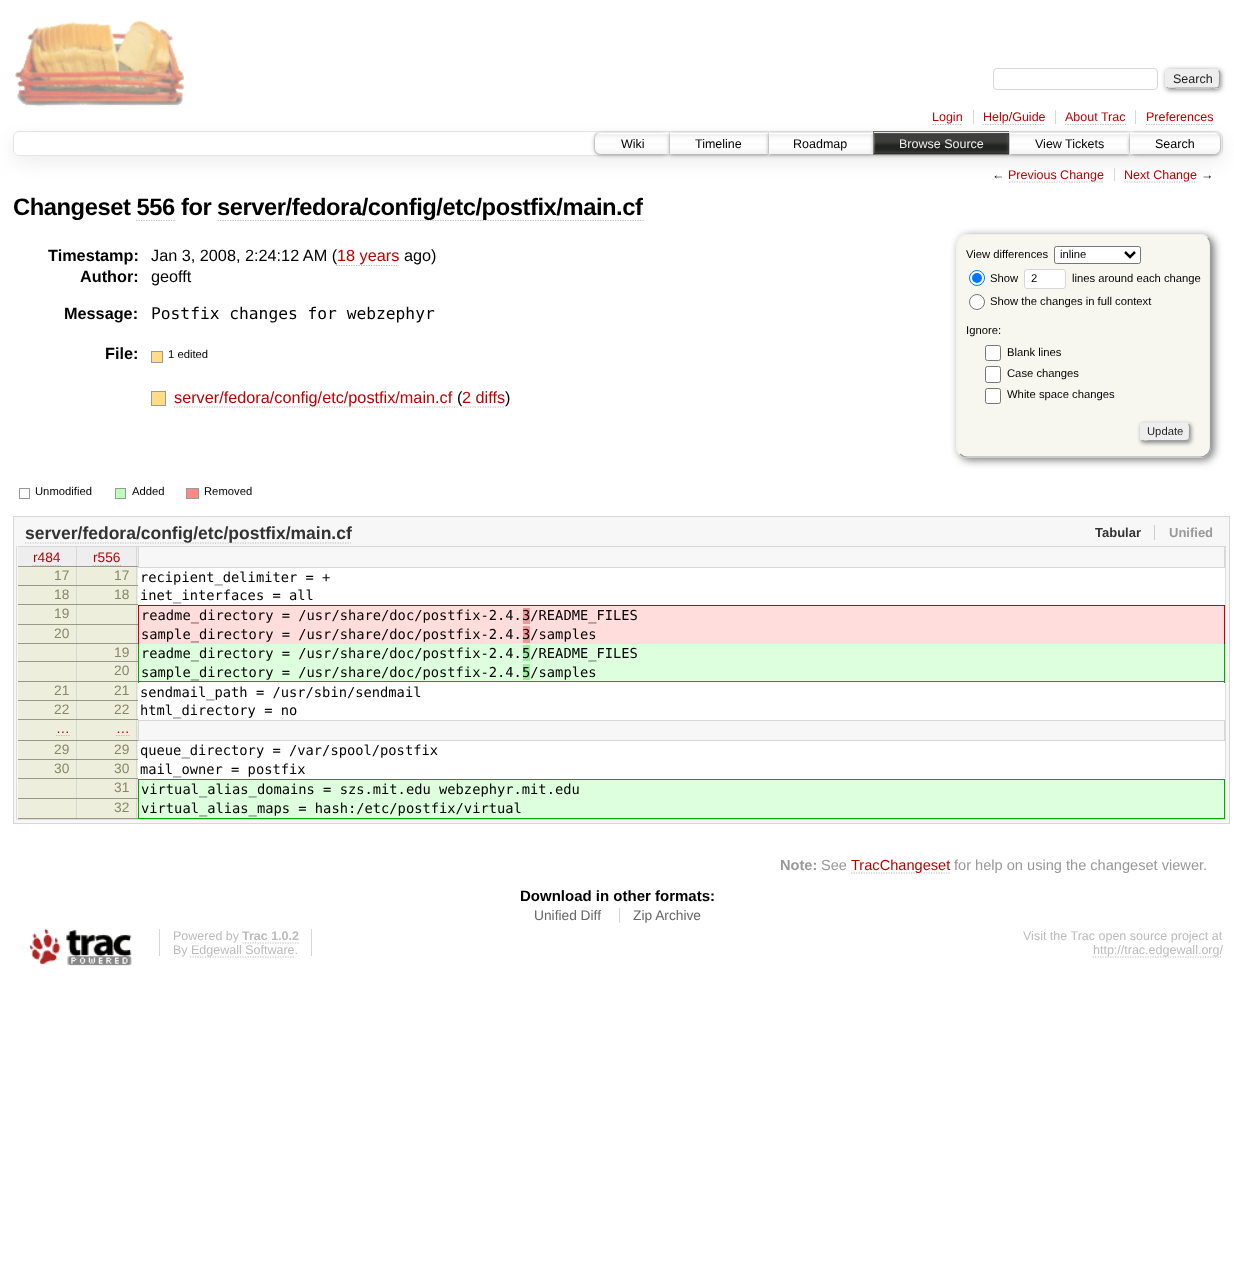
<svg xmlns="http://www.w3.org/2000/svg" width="1234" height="1269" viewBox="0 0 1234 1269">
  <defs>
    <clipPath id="clip1"><path d="M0 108H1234V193H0ZM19 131H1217C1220.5 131 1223 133.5 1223 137V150C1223 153.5 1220.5 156 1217 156H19C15.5 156 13 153.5 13 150V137C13 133.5 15.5 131 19 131Z" clip-rule="evenodd"/></clipPath>
    <clipPath id="clip2"><path d="M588 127H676V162H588ZM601 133H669V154H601C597.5 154 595 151.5 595 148V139C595 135.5 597.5 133 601 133Z" clip-rule="evenodd"/></clipPath>
    <clipPath id="clip3"><path d="M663 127H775V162H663ZM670 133H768V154H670Z" clip-rule="evenodd"/></clipPath>
    <clipPath id="clip4"><path d="M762 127H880V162H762ZM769 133H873V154H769Z" clip-rule="evenodd"/></clipPath>
    <clipPath id="clip5"><path d="M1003 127H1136V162H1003ZM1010 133H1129V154H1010Z" clip-rule="evenodd"/></clipPath>
    <clipPath id="clip6"><path d="M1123 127H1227V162H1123ZM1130 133H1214C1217.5 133 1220 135.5 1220 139V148C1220 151.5 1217.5 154 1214 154H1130Z" clip-rule="evenodd"/></clipPath>
  </defs>
  <rect width="100%" height="100%" fill="rgb(255,255,255)"/>
  <image x="15" y="21" width="169" height="86" href="pic1.png"/>
  <rect x="993.5" y="68.5" width="164" height="21" rx="3.5" fill="none" stroke="rgb(215,215,215)"/>
  <rect x="1166" y="70" width="55" height="20" rx="4" fill="rgb(136,136,136)" filter="blur(2.5px)"/>
  <rect x="1165" y="69" width="55" height="20" rx="4" fill="rgb(238,238,238)"/>
  <path d="M1218.5 70.5C1220.5 72.5 1219.5 76.5 1219.5 79C1219.5 89.5 1220 88 1208.5 88H1176.5C1176 88 1168.5 89.5 1166.5 87" fill="none" stroke="rgb(159,159,159)" stroke-width="1.2"/>
  <path d="M1166.5 87C1164.5 85 1165.5 81 1165.5 79C1165.5 68 1165 69.5 1176.5 69.5H1208.5C1209 69.5 1216.5 68 1218.5 70.5" fill="none" stroke="rgb(238,238,238)" stroke-width="1.2"/>
  <text x="1173" y="83" font-family="Liberation Sans" font-size="12.5" fill="rgb(34,34,34)">Search</text>
  <g clip-path="url(#clip1)">
    <rect x="13" y="138" width="1210" height="25" rx="6" fill="rgb(238,238,238)" filter="blur(9.5px)"/>
  </g>
  <rect x="973" y="110" width="1" height="14" fill="rgb(215,215,215)"/>
  <path d="M932.5 124.5H962.5" fill="none" stroke="rgb(187,187,187)" stroke-width="1.2" stroke-dasharray="1.25 1.25"/>
  <text x="932" y="121" font-family="Liberation Sans" font-size="12.5" fill="rgb(187,0,0)">Login</text>
  <rect x="1055" y="110" width="1" height="14" fill="rgb(215,215,215)"/>
  <path d="M982.5 124.5H1045" fill="none" stroke="rgb(187,187,187)" stroke-width="1.2" stroke-dasharray="1.25 1.25"/>
  <text x="983" y="121" font-family="Liberation Sans" font-size="12.5" fill="rgb(187,0,0)">Help/Guide</text>
  <rect x="1135" y="110" width="1" height="14" fill="rgb(215,215,215)"/>
  <text x="1065" y="121" font-family="Liberation Sans" font-size="12.5" fill="rgb(187,0,0)">About Trac</text>
  <path d="M1065 124.5H1126" fill="none" stroke="rgb(187,187,187)" stroke-width="1.2" stroke-dasharray="1.25 1.25"/>
  <text x="1146" y="121" font-family="Liberation Sans" font-size="12.5" fill="rgb(187,0,0)">Preferences</text>
  <path d="M1146 124.5H1214" fill="none" stroke="rgb(187,187,187)" stroke-width="1.2" stroke-dasharray="1.25 1.25"/>
  <rect x="13.5" y="131.5" width="1209" height="24" rx="5.5" fill="none" stroke="rgb(228,228,228)"/>
  <path d="M600 131H670V155H600C596.5 155 594 152.5 594 149V137C594 133.5 596.5 131 600 131Z" fill="rgb(255,255,255)"/>
  <image x="594" y="134" width="75" height="21" href="pic2.png"/>
  <path d="M600 131.5H669.5V154.5H600C597 154.5 594.5 152 594.5 149V137C594.5 134 597 131.5 600 131.5Z" fill="none" stroke="rgb(228,228,228)"/>
  <g clip-path="url(#clip2)">
    <rect x="595" y="134" width="74" height="21" rx="6" fill="rgb(153,153,153)" filter="blur(2px)"/>
  </g>
  <text x="621" y="148" font-family="Liberation Sans" font-size="12.5" fill="rgb(0,0,0)">Wiki</text>
  <rect x="670" y="134" width="3" height="20" fill="rgb(255,255,255)"/>
  <image x="670" y="134" width="98" height="20" href="pic3.png"/>
  <rect x="669.5" y="131.5" width="99" height="23" fill="none" stroke="rgb(228,228,228)"/>
  <g clip-path="url(#clip3)">
    <rect x="670" y="134" width="98" height="21" fill="rgb(153,153,153)" filter="blur(2px)"/>
  </g>
  <text x="695" y="148" font-family="Liberation Sans" font-size="12.5" fill="rgb(0,0,0)">Timeline</text>
  <rect x="769" y="132" width="3" height="22" fill="rgb(255,255,255)"/>
  <image x="767" y="134" width="106" height="20" href="pic4.png"/>
  <rect x="768.5" y="131.5" width="105" height="23" fill="none" stroke="rgb(228,228,228)"/>
  <g clip-path="url(#clip4)">
    <rect x="769" y="134" width="104" height="21" fill="rgb(153,153,153)" filter="blur(2px)"/>
  </g>
  <text x="793" y="148" font-family="Liberation Sans" font-size="12.5" fill="rgb(0,0,0)">Roadmap</text>
  <rect x="874" y="132" width="1" height="1" fill="rgb(255,255,255)"/>
  <image x="872" y="134" width="1" height="7" href="pic5.png"/>
  <rect x="873.5" y="131.5" width="136" height="23" fill="none" stroke="rgb(102,102,102)"/>
  <rect x="874" y="134" width="135" height="21" fill="rgb(153,153,153)" filter="blur(2px)"/>
  <rect x="874" y="133" width="135" height="21" fill="rgb(0,0,0)"/>
  <image x="873" y="132" width="136" height="22" href="pic6.png"/>
  <text x="899" y="148" font-family="Liberation Sans" font-size="12.5" fill="rgb(238,238,238)">Browse Source</text>
  <rect x="1010" y="132" width="3" height="22" fill="rgb(255,255,255)"/>
  <image x="1010" y="134" width="119" height="20" href="pic7.png"/>
  <rect x="1009.5" y="131.5" width="120" height="23" fill="none" stroke="rgb(228,228,228)"/>
  <g clip-path="url(#clip5)">
    <rect x="1010" y="134" width="119" height="21" fill="rgb(153,153,153)" filter="blur(2px)"/>
  </g>
  <text x="1035" y="148" font-family="Liberation Sans" font-size="12.5" fill="rgb(0,0,0)">View Tickets</text>
  <path d="M1129 131H1215C1218.5 131 1221 133.5 1221 137V149C1221 152.5 1218.5 155 1215 155H1129Z" fill="rgb(255,255,255)"/>
  <image x="1130" y="134" width="91" height="21" href="pic8.png"/>
  <path d="M1129.5 131.5H1215C1218 131.5 1220.5 134 1220.5 137V149C1220.5 152 1218 154.5 1215 154.5H1129.5Z" fill="none" stroke="rgb(228,228,228)"/>
  <g clip-path="url(#clip6)">
    <rect x="1130" y="134" width="90" height="21" rx="6" fill="rgb(153,153,153)" filter="blur(2px)"/>
  </g>
  <text x="1155" y="148" font-family="Liberation Sans" font-size="12.5" fill="rgb(0,0,0)">Search</text>
  <rect x="1114" y="168" width="1" height="13" fill="rgb(215,215,215)"/>
  <text x="992" y="179" font-family="Liberation Sans" font-size="12.5" fill="rgb(0,0,0)">←</text>
  <path d="M1009 182H1104" fill="none" stroke="rgb(187,187,187)" stroke-width="1.2" stroke-dasharray="1.25 1.25"/>
  <text x="1008" y="179" font-family="Liberation Sans" font-size="12.5" fill="rgb(187,0,0)">Previous Change</text>
  <path d="M1124 182H1197.5" fill="none" stroke="rgb(187,187,187)" stroke-width="1.2" stroke-dasharray="1.25 1.25"/>
  <text x="1124" y="179" font-family="Liberation Sans" font-size="12.5" fill="rgb(187,0,0)">Next Change</text>
  <text x="1201" y="179" font-family="Liberation Sans" font-size="12.5" fill="rgb(0,0,0)">→</text>
  <text x="13" y="215" font-family="Liberation Sans" font-size="23.75" font-weight="bold" letter-spacing="-0.45" fill="rgb(0,0,0)">Changeset 556 for</text>
  <path d="M217.5 220.5H644" fill="none" stroke="rgb(187,187,187)" stroke-width="1.2" stroke-dasharray="1.25 1.25"/>
  <text x="217" y="215" font-family="Liberation Sans" font-size="23.75" font-weight="bold" letter-spacing="-0.45" fill="rgb(0,0,0)">server/fedora/config/etc/postfix/main.cf</text>
  <path d="M136 220.5H175" fill="none" stroke="rgb(187,187,187)" stroke-width="1.2" stroke-dasharray="1.25 1.25"/>
  <text x="48" y="261" font-family="Liberation Sans" font-size="16.25" font-weight="bold" fill="rgb(0,0,0)">Timestamp:</text>
  <text x="151" y="261" font-family="Liberation Sans" font-size="16.25" fill="rgb(0,0,0)">Jan 3, 2008, 2:24:12 AM (</text>
  <path d="M336 265.5H399" fill="none" stroke="rgb(187,187,187)" stroke-width="1.2" stroke-dasharray="1.25 1.25"/>
  <text x="337" y="261" font-family="Liberation Sans" font-size="16.25" fill="rgb(187,0,0)">18 years</text>
  <text x="404" y="261" font-family="Liberation Sans" font-size="16.25" fill="rgb(0,0,0)">ago)</text>
  <text x="80" y="282" font-family="Liberation Sans" font-size="16.25" font-weight="bold" fill="rgb(0,0,0)">Author:</text>
  <text x="151" y="282" font-family="Liberation Sans" font-size="16.25" fill="rgb(0,0,0)">geofft</text>
  <text x="64" y="319" font-family="Liberation Sans" font-size="16.25" font-weight="bold" fill="rgb(0,0,0)">Message:</text>
  <text x="151" y="319" font-family="DejaVu Sans Mono" font-size="16.25" fill="rgb(0,0,0)">Postfix changes for webzephyr</text>
  <text x="105" y="359" font-family="Liberation Sans" font-size="16.25" font-weight="bold" fill="rgb(0,0,0)">File:</text>
  <rect x="151.5" y="351.5" width="11" height="11" fill="rgb(255,221,136)" stroke="rgb(153,153,153)"/>
  <text x="168" y="358" font-family="Liberation Sans" font-size="11.25" fill="rgb(0,0,0)">1 edited</text>
  <rect x="151.5" y="391.5" width="14" height="14" fill="rgb(255,221,136)" stroke="rgb(153,153,153)"/>
  <path d="M174 407H457.5" fill="none" stroke="rgb(187,187,187)" stroke-width="1.2" stroke-dasharray="1.25 1.25"/>
  <text x="174" y="403" font-family="Liberation Sans" font-size="16.25" fill="rgb(187,0,0)">server/fedora/config/etc/postfix/main.cf</text>
  <text x="457" y="403" font-family="Liberation Sans" font-size="16.25" fill="rgb(0,0,0)">(</text>
  <text x="462" y="403" font-family="Liberation Sans" font-size="16.25" fill="rgb(187,0,0)">2 diffs</text>
  <path d="M462.5 407H505" fill="none" stroke="rgb(187,187,187)" stroke-width="1.2" stroke-dasharray="1.25 1.25"/>
  <text x="505" y="403" font-family="Liberation Sans" font-size="16.25" fill="rgb(0,0,0)">)</text>
  <rect x="959" y="236" width="255" height="224" rx="11" fill="rgb(119,119,119)" filter="blur(4px)"/>
  <rect x="956" y="234" width="255" height="224" rx="11" fill="rgb(247,247,240)"/>
  <path d="M1207.5 237.5C1209.5 239.5 1210.5 242 1210.5 245V446C1210.5 449 1209.5 452 1207.5 454C1205.5 456 1203 457 1200 457H967.5C964.5 457 962 456 960 454" fill="none" stroke="rgb(159,159,159)" stroke-width="1.2"/>
  <path d="M960 454C958 452 957 449 957 446V245C957 242 958 239.5 960 237.5C962 235.5 964.5 234.5 967.5 234.5H1200C1203 234.5 1205.5 235.5 1207.5 237.5" fill="none" stroke="rgb(238,238,238)" stroke-width="1.2"/>
  <text x="966" y="258" font-family="Liberation Sans" font-size="11.25" fill="rgb(0,0,0)">View differences</text>
  <rect x="1054.5" y="246.5" width="86" height="17" rx="2" fill="rgb(255,255,255)" stroke="rgb(118,118,118)"/>
  <path d="M1125 252L1130 257L1135 252" fill="none" stroke="rgb(0,0,0)" stroke-width="2.5"/>
  <text x="1060" y="258" font-family="Liberation Sans" font-size="11.25" fill="rgb(0,0,0)">inline</text>
  <circle cx="977" cy="278" r="7.5" fill="rgb(255,255,255)" stroke="rgb(0,117,255)"/>
  <circle cx="977" cy="278" r="5" fill="rgb(0,117,255)"/>
  <text x="990" y="282" font-family="Liberation Sans" font-size="11.25" fill="rgb(0,0,0)">Show</text>
  <rect x="1024.5" y="269.5" width="41" height="19" rx="2.5" fill="rgb(255,255,255)" stroke="rgb(215,215,215)"/>
  <g font-family="Liberation Sans" font-size="11.25" fill="rgb(0,0,0)">
    <text x="1031" y="282">2</text>
    <text x="1072" y="282">lines around each change</text>
  </g>
  <circle cx="977" cy="302" r="7.5" fill="rgb(255,255,255)" stroke="rgb(118,118,118)"/>
  <g font-family="Liberation Sans" font-size="11.25" fill="rgb(0,0,0)">
    <text x="990" y="305">Show the changes in full context</text>
    <text x="966" y="334">Ignore:</text>
  </g>
  <rect x="985.5" y="345.5" width="15" height="15" rx="2" fill="rgb(255,255,255)" stroke="rgb(118,118,118)"/>
  <text x="1007" y="356" font-family="Liberation Sans" font-size="11.25" fill="rgb(0,0,0)">Blank lines</text>
  <rect x="985.5" y="366.5" width="15" height="16" rx="2" fill="rgb(255,255,255)" stroke="rgb(118,118,118)"/>
  <text x="1007" y="377" font-family="Liberation Sans" font-size="11.25" fill="rgb(0,0,0)">Case changes</text>
  <rect x="985.5" y="388.5" width="15" height="15" rx="2" fill="rgb(255,255,255)" stroke="rgb(118,118,118)"/>
  <text x="1007" y="398" font-family="Liberation Sans" font-size="11.25" fill="rgb(0,0,0)">White space changes</text>
  <rect x="1141" y="424" width="50" height="19" rx="3" fill="rgb(136,136,136)" filter="blur(2px)"/>
  <rect x="1140" y="423" width="50" height="18" rx="3" fill="rgb(238,238,238)"/>
  <path d="M1188.5 424C1190.5 426 1189.5 429.5 1189.5 432C1189.5 442 1190 440.5 1179.5 440.5H1150.5C1150 440.5 1143.5 442 1141.5 440" fill="none" stroke="rgb(159,159,159)" stroke-width="1.2"/>
  <path d="M1141.5 440C1139.5 438 1140.5 434 1140.5 432C1140.5 422 1140 423 1150.5 423H1179.5C1180 423 1186.5 422 1188.5 424" fill="none" stroke="rgb(238,238,238)" stroke-width="1.2"/>
  <text x="1147" y="435" font-family="Liberation Sans" font-size="11.25" fill="rgb(34,34,34)">Update</text>
  <rect x="19.5" y="488.5" width="10" height="10" fill="none" stroke="rgb(153,153,153)"/>
  <text x="35" y="495" font-family="Liberation Sans" font-size="11.25" fill="rgb(0,0,0)">Unmodified</text>
  <rect x="115.5" y="488.5" width="10" height="10" fill="rgb(187,255,187)" stroke="rgb(153,153,153)"/>
  <text x="132" y="495" font-family="Liberation Sans" font-size="11.25" fill="rgb(0,0,0)">Added</text>
  <rect x="186.5" y="488.5" width="12" height="10" fill="rgb(255,136,136)" stroke="rgb(153,153,153)"/>
  <text x="204" y="495" font-family="Liberation Sans" font-size="11.25" fill="rgb(0,0,0)">Removed</text>
  <rect x="13.5" y="516.5" width="1216" height="307" fill="rgb(247,247,247)" stroke="rgb(215,215,215)"/>
  <path d="M25 543H351" fill="none" stroke="rgb(187,187,187)" stroke-width="1.2" stroke-dasharray="1.25 1.25"/>
  <text x="25" y="539" font-family="Liberation Sans" font-size="17.5" font-weight="bold" fill="rgb(51,51,51)">server/fedora/config/etc/postfix/main.cf</text>
  <text x="1095" y="537" font-family="Liberation Sans" font-size="13" font-weight="bold" fill="rgb(51,51,51)">Tabular</text>
  <text x="1169" y="537" font-family="Liberation Sans" font-size="13" font-weight="bold" fill="rgb(153,153,153)">Unified</text>
  <rect x="1154" y="525" width="1" height="15" fill="rgb(204,204,204)"/>
  <rect x="1225" y="546" width="1" height="274" fill="rgb(221,221,221)"/>
  <rect x="16" y="819" width="1210" height="1" fill="rgb(221,221,221)"/>
  <rect x="16" y="546" width="1" height="274" fill="rgb(221,221,221)"/>
  <rect x="18" y="547" width="120" height="21" fill="rgb(238,238,238)"/>
  <rect x="18" y="546" width="120" height="1" fill="rgb(215,215,215)"/>
  <rect x="76" y="546" width="1" height="22" fill="rgb(215,215,215)"/>
  <rect x="18" y="566" width="60" height="1" fill="rgb(153,153,136)"/>
  <text x="33" y="562" font-family="Liberation Sans" font-size="13.75" fill="rgb(187,0,0)">r484</text>
  <path d="M32.5 565.5H61" fill="none" stroke="rgb(187,187,187)" stroke-width="1.2" stroke-dasharray="1.25 1.25"/>
  <rect x="136" y="546" width="1" height="22" fill="rgb(215,215,215)"/>
  <rect x="78" y="566" width="60" height="1" fill="rgb(153,153,136)"/>
  <text x="93" y="562" font-family="Liberation Sans" font-size="13.75" fill="rgb(187,0,0)">r556</text>
  <path d="M92.5 565.5H121" fill="none" stroke="rgb(187,187,187)" stroke-width="1.2" stroke-dasharray="1.25 1.25"/>
  <rect x="138.5" y="546.5" width="1086" height="21" fill="none" stroke="rgb(215,215,215)"/>
  <rect x="18" y="568" width="120" height="17" fill="rgb(238,238,221)"/>
  <rect x="76" y="568" width="1" height="18" fill="rgb(215,215,215)"/>
  <rect x="18" y="585" width="60" height="1" fill="rgb(153,153,136)"/>
  <text x="54" y="580" font-family="Liberation Sans" font-size="13.75" fill="rgb(136,136,102)">17</text>
  <rect x="136" y="568" width="1" height="18" fill="rgb(215,215,215)"/>
  <rect x="78" y="585" width="60" height="1" fill="rgb(153,153,136)"/>
  <text x="114" y="580" font-family="Liberation Sans" font-size="13.75" fill="rgb(136,136,102)">17</text>
  <rect x="138" y="568" width="1087" height="37" fill="rgb(255,255,255)"/>
  <text x="140" y="582" font-family="DejaVu Sans Mono" font-size="13.75" fill="rgb(0,0,0)">recipient_delimiter = +</text>
  <rect x="18" y="586" width="120" height="18" fill="rgb(238,238,221)"/>
  <rect x="76" y="586" width="1" height="19" fill="rgb(215,215,215)"/>
  <rect x="18" y="604" width="60" height="1" fill="rgb(153,153,136)"/>
  <text x="54" y="599" font-family="Liberation Sans" font-size="13.75" fill="rgb(136,136,102)">18</text>
  <rect x="136" y="586" width="1" height="19" fill="rgb(215,215,215)"/>
  <rect x="78" y="604" width="60" height="1" fill="rgb(153,153,136)"/>
  <text x="114" y="599" font-family="Liberation Sans" font-size="13.75" fill="rgb(136,136,102)">18</text>
  <text x="140" y="600" font-family="DejaVu Sans Mono" font-size="13.75" fill="rgb(0,0,0)">inet_interfaces = all</text>
  <rect x="18" y="605" width="120" height="19" fill="rgb(238,238,221)"/>
  <rect x="76" y="605" width="1" height="20" fill="rgb(215,215,215)"/>
  <rect x="18" y="624" width="60" height="1" fill="rgb(153,153,136)"/>
  <text x="54" y="618" font-family="Liberation Sans" font-size="13.75" fill="rgb(136,136,102)">19</text>
  <rect x="136" y="605" width="1" height="20" fill="rgb(215,215,215)"/>
  <rect x="78" y="624" width="60" height="1" fill="rgb(153,153,136)"/>
  <rect x="139" y="606" width="1085" height="38" fill="rgb(255,221,221)"/>
  <rect x="138" y="605" width="1087" height="1" fill="rgb(204,0,0)"/>
  <rect x="1224" y="605" width="1" height="39" fill="rgb(204,0,0)"/>
  <rect x="138" y="605" width="1" height="39" fill="rgb(204,0,0)"/>
  <text x="141" y="620" font-family="DejaVu Sans Mono" font-size="13.75" fill="rgb(0,0,0)">readme_directory = /usr/share/doc/postfix-2.4.</text>
  <rect x="523" y="608" width="7" height="16" fill="rgb(238,153,153)"/>
  <text x="522" y="620" font-family="DejaVu Sans Mono" font-size="13.75" fill="rgb(0,0,0)">3/README_FILES</text>
  <rect x="18" y="625" width="120" height="18" fill="rgb(238,238,221)"/>
  <rect x="76" y="625" width="1" height="19" fill="rgb(215,215,215)"/>
  <rect x="18" y="643" width="60" height="1" fill="rgb(153,153,136)"/>
  <text x="54" y="638" font-family="Liberation Sans" font-size="13.75" fill="rgb(136,136,102)">20</text>
  <rect x="136" y="625" width="1" height="19" fill="rgb(215,215,215)"/>
  <rect x="78" y="643" width="60" height="1" fill="rgb(153,153,136)"/>
  <text x="141" y="639" font-family="DejaVu Sans Mono" font-size="13.75" fill="rgb(0,0,0)">sample_directory = /usr/share/doc/postfix-2.4.</text>
  <rect x="523" y="626" width="7" height="17" fill="rgb(238,153,153)"/>
  <text x="522" y="639" font-family="DejaVu Sans Mono" font-size="13.75" fill="rgb(0,0,0)">3/samples</text>
  <rect x="18" y="644" width="120" height="19" fill="rgb(238,238,221)"/>
  <rect x="76" y="644" width="1" height="19" fill="rgb(215,215,215)"/>
  <rect x="18" y="661" width="60" height="1" fill="rgb(153,153,136)"/>
  <rect x="136" y="644" width="1" height="19" fill="rgb(215,215,215)"/>
  <rect x="78" y="661" width="60" height="1" fill="rgb(153,153,136)"/>
  <text x="114" y="657" font-family="Liberation Sans" font-size="13.75" fill="rgb(136,136,102)">19</text>
  <rect x="139" y="644" width="1085" height="37" fill="rgb(221,255,221)"/>
  <rect x="1224" y="644" width="1" height="39" fill="rgb(0,170,0)"/>
  <rect x="138" y="644" width="1" height="19" fill="rgb(0,170,0)"/>
  <text x="141" y="658" font-family="DejaVu Sans Mono" font-size="13.75" fill="rgb(0,0,0)">readme_directory = /usr/share/doc/postfix-2.4.</text>
  <rect x="523" y="645" width="7" height="16" fill="rgb(153,238,153)"/>
  <text x="522" y="658" font-family="DejaVu Sans Mono" font-size="13.75" fill="rgb(0,0,0)">5/README_FILES</text>
  <rect x="18" y="663" width="120" height="20" fill="rgb(238,238,221)"/>
  <rect x="76" y="663" width="1" height="20" fill="rgb(215,215,215)"/>
  <rect x="18" y="681" width="60" height="1" fill="rgb(153,153,136)"/>
  <rect x="136" y="663" width="1" height="20" fill="rgb(215,215,215)"/>
  <rect x="78" y="681" width="60" height="1" fill="rgb(153,153,136)"/>
  <text x="114" y="675" font-family="Liberation Sans" font-size="13.75" fill="rgb(136,136,102)">20</text>
  <rect x="138" y="681" width="1087" height="1" fill="rgb(0,170,0)"/>
  <rect x="138" y="663" width="1" height="20" fill="rgb(0,170,0)"/>
  <text x="141" y="677" font-family="DejaVu Sans Mono" font-size="13.75" fill="rgb(0,0,0)">sample_directory = /usr/share/doc/postfix-2.4.</text>
  <rect x="523" y="664" width="7" height="16" fill="rgb(153,238,153)"/>
  <text x="522" y="677" font-family="DejaVu Sans Mono" font-size="13.75" fill="rgb(0,0,0)">5/samples</text>
  <rect x="18" y="683" width="120" height="17" fill="rgb(238,238,221)"/>
  <rect x="76" y="683" width="1" height="18" fill="rgb(215,215,215)"/>
  <rect x="18" y="700" width="60" height="1" fill="rgb(153,153,136)"/>
  <text x="54" y="695" font-family="Liberation Sans" font-size="13.75" fill="rgb(136,136,102)">21</text>
  <rect x="136" y="683" width="1" height="18" fill="rgb(215,215,215)"/>
  <rect x="78" y="700" width="60" height="1" fill="rgb(153,153,136)"/>
  <text x="114" y="695" font-family="Liberation Sans" font-size="13.75" fill="rgb(136,136,102)">21</text>
  <rect x="138" y="683" width="1087" height="37" fill="rgb(255,255,255)"/>
  <text x="140" y="697" font-family="DejaVu Sans Mono" font-size="13.75" fill="rgb(0,0,0)">sendmail_path = /usr/sbin/sendmail</text>
  <rect x="18" y="701" width="120" height="18" fill="rgb(238,238,221)"/>
  <rect x="76" y="701" width="1" height="19" fill="rgb(215,215,215)"/>
  <rect x="18" y="719" width="60" height="1" fill="rgb(153,153,136)"/>
  <text x="54" y="714" font-family="Liberation Sans" font-size="13.75" fill="rgb(136,136,102)">22</text>
  <rect x="136" y="701" width="1" height="19" fill="rgb(215,215,215)"/>
  <rect x="78" y="719" width="60" height="1" fill="rgb(153,153,136)"/>
  <text x="114" y="714" font-family="Liberation Sans" font-size="13.75" fill="rgb(136,136,102)">22</text>
  <text x="140" y="715" font-family="DejaVu Sans Mono" font-size="13.75" fill="rgb(0,0,0)">html_directory = no</text>
  <rect x="18" y="720" width="120" height="20" fill="rgb(238,238,221)"/>
  <rect x="76" y="720" width="1" height="21" fill="rgb(215,215,215)"/>
  <rect x="18" y="740" width="60" height="1" fill="rgb(153,153,136)"/>
  <text x="56" y="733" font-family="Liberation Sans" font-size="13.75" fill="rgb(187,0,0)">…</text>
  <path d="M56 735.5H70" fill="none" stroke="rgb(187,187,187)" stroke-width="1.2" stroke-dasharray="1.25 1.25"/>
  <rect x="136" y="720" width="1" height="21" fill="rgb(215,215,215)"/>
  <rect x="78" y="740" width="60" height="1" fill="rgb(153,153,136)"/>
  <text x="116" y="733" font-family="Liberation Sans" font-size="13.75" fill="rgb(187,0,0)">…</text>
  <path d="M116 735.5H130" fill="none" stroke="rgb(187,187,187)" stroke-width="1.2" stroke-dasharray="1.25 1.25"/>
  <rect x="138.5" y="720.5" width="1086" height="20" fill="none" stroke="rgb(215,215,215)"/>
  <rect x="18" y="741" width="120" height="18" fill="rgb(238,238,221)"/>
  <rect x="76" y="741" width="1" height="19" fill="rgb(215,215,215)"/>
  <rect x="18" y="759" width="60" height="1" fill="rgb(153,153,136)"/>
  <text x="54" y="754" font-family="Liberation Sans" font-size="13.75" fill="rgb(136,136,102)">29</text>
  <rect x="136" y="741" width="1" height="19" fill="rgb(215,215,215)"/>
  <rect x="78" y="759" width="60" height="1" fill="rgb(153,153,136)"/>
  <text x="114" y="754" font-family="Liberation Sans" font-size="13.75" fill="rgb(136,136,102)">29</text>
  <rect x="138" y="741" width="1087" height="38" fill="rgb(255,255,255)"/>
  <text x="140" y="755" font-family="DejaVu Sans Mono" font-size="13.75" fill="rgb(0,0,0)">queue_directory = /var/spool/postfix</text>
  <rect x="18" y="760" width="120" height="18" fill="rgb(238,238,221)"/>
  <rect x="76" y="760" width="1" height="19" fill="rgb(215,215,215)"/>
  <rect x="18" y="778" width="60" height="1" fill="rgb(153,153,136)"/>
  <text x="54" y="773" font-family="Liberation Sans" font-size="13.75" fill="rgb(136,136,102)">30</text>
  <rect x="136" y="760" width="1" height="19" fill="rgb(215,215,215)"/>
  <rect x="78" y="778" width="60" height="1" fill="rgb(153,153,136)"/>
  <text x="114" y="773" font-family="Liberation Sans" font-size="13.75" fill="rgb(136,136,102)">30</text>
  <text x="140" y="774" font-family="DejaVu Sans Mono" font-size="13.75" fill="rgb(0,0,0)">mail_owner = postfix</text>
  <rect x="18" y="779" width="120" height="19" fill="rgb(238,238,221)"/>
  <rect x="76" y="779" width="1" height="20" fill="rgb(215,215,215)"/>
  <rect x="18" y="798" width="60" height="1" fill="rgb(153,153,136)"/>
  <rect x="136" y="779" width="1" height="20" fill="rgb(215,215,215)"/>
  <rect x="78" y="798" width="60" height="1" fill="rgb(153,153,136)"/>
  <text x="114" y="792" font-family="Liberation Sans" font-size="13.75" fill="rgb(136,136,102)">31</text>
  <rect x="139" y="780" width="1085" height="38" fill="rgb(221,255,221)"/>
  <rect x="138" y="779" width="1087" height="1" fill="rgb(0,170,0)"/>
  <rect x="1224" y="779" width="1" height="40" fill="rgb(0,170,0)"/>
  <rect x="138" y="779" width="1" height="20" fill="rgb(0,170,0)"/>
  <text x="141" y="794" font-family="DejaVu Sans Mono" font-size="13.75" fill="rgb(0,0,0)">virtual_alias_domains = szs.mit.edu webzephyr.mit.edu</text>
  <rect x="18" y="799" width="120" height="19" fill="rgb(238,238,221)"/>
  <rect x="76" y="799" width="1" height="20" fill="rgb(215,215,215)"/>
  <rect x="18" y="818" width="60" height="1" fill="rgb(153,153,136)"/>
  <rect x="136" y="799" width="1" height="20" fill="rgb(215,215,215)"/>
  <rect x="78" y="818" width="60" height="1" fill="rgb(153,153,136)"/>
  <text x="114" y="812" font-family="Liberation Sans" font-size="13.75" fill="rgb(136,136,102)">32</text>
  <rect x="138" y="818" width="1087" height="1" fill="rgb(0,170,0)"/>
  <rect x="138" y="799" width="1" height="20" fill="rgb(0,170,0)"/>
  <text x="141" y="813" font-family="DejaVu Sans Mono" font-size="13.75" fill="rgb(0,0,0)">virtual_alias_maps = hash:/etc/postfix/virtual</text>
  <text x="780" y="870" font-family="Liberation Sans" font-size="14.6" font-weight="bold" fill="rgb(153,153,153)">Note:</text>
  <text x="821" y="870" font-family="Liberation Sans" font-size="14.6" fill="rgb(153,153,153)">See</text>
  <path d="M851 873H950" fill="none" stroke="rgb(187,187,187)" stroke-width="1.2" stroke-dasharray="1.25 1.25"/>
  <text x="851" y="870" font-family="Liberation Sans" font-size="14.6" fill="rgb(187,0,0)">TracChangeset</text>
  <text x="954" y="870" font-family="Liberation Sans" font-size="14.6" fill="rgb(153,153,153)">for help on using the changeset viewer.</text>
  <text x="520" y="901" font-family="Liberation Sans" font-size="15" font-weight="bold" fill="rgb(0,0,0)">Download in other formats:</text>
  <text x="534" y="920" font-family="Liberation Sans" font-size="13.75" fill="rgb(102,102,102)">Unified Diff</text>
  <rect x="619" y="908" width="1" height="15" fill="rgb(215,215,215)"/>
  <text x="633" y="920" font-family="Liberation Sans" font-size="13.75" fill="rgb(102,102,102)">Zip Archive</text>
  <image x="29" y="928" width="103" height="38" href="pic9.png"/>
  <rect x="311" y="929" width="1" height="27" fill="rgb(215,215,215)"/>
  <rect x="159" y="929" width="1" height="27" fill="rgb(215,215,215)"/>
  <text x="173" y="940" font-family="Liberation Sans" font-size="12.5" fill="rgb(187,187,187)">Powered by</text>
  <text x="242" y="940" font-family="Liberation Sans" font-size="12.5" font-weight="bold" fill="rgb(187,187,187)">Trac 1.0.2</text>
  <path d="M242.5 943H299" fill="none" stroke="rgb(187,187,187)" stroke-width="1.2" stroke-dasharray="1.25 1.25"/>
  <text x="173" y="954" font-family="Liberation Sans" font-size="12.5" fill="rgb(187,187,187)">By</text>
  <path d="M190 957H294" fill="none" stroke="rgb(187,187,187)" stroke-width="1.2" stroke-dasharray="1.25 1.25"/>
  <g font-family="Liberation Sans" font-size="12.5" fill="rgb(187,187,187)">
    <text x="191" y="954">Edgewall Software.</text>
    <text x="1023" y="940">Visit the Trac open source project at</text>
  </g>
  <path d="M1092.5 957H1222.5" fill="none" stroke="rgb(187,187,187)" stroke-width="1.2" stroke-dasharray="1.25 1.25"/>
  <text x="1093" y="954" font-family="Liberation Sans" font-size="12.5" fill="rgb(187,187,187)">http://trac.edgewall.org/</text>
</svg>
